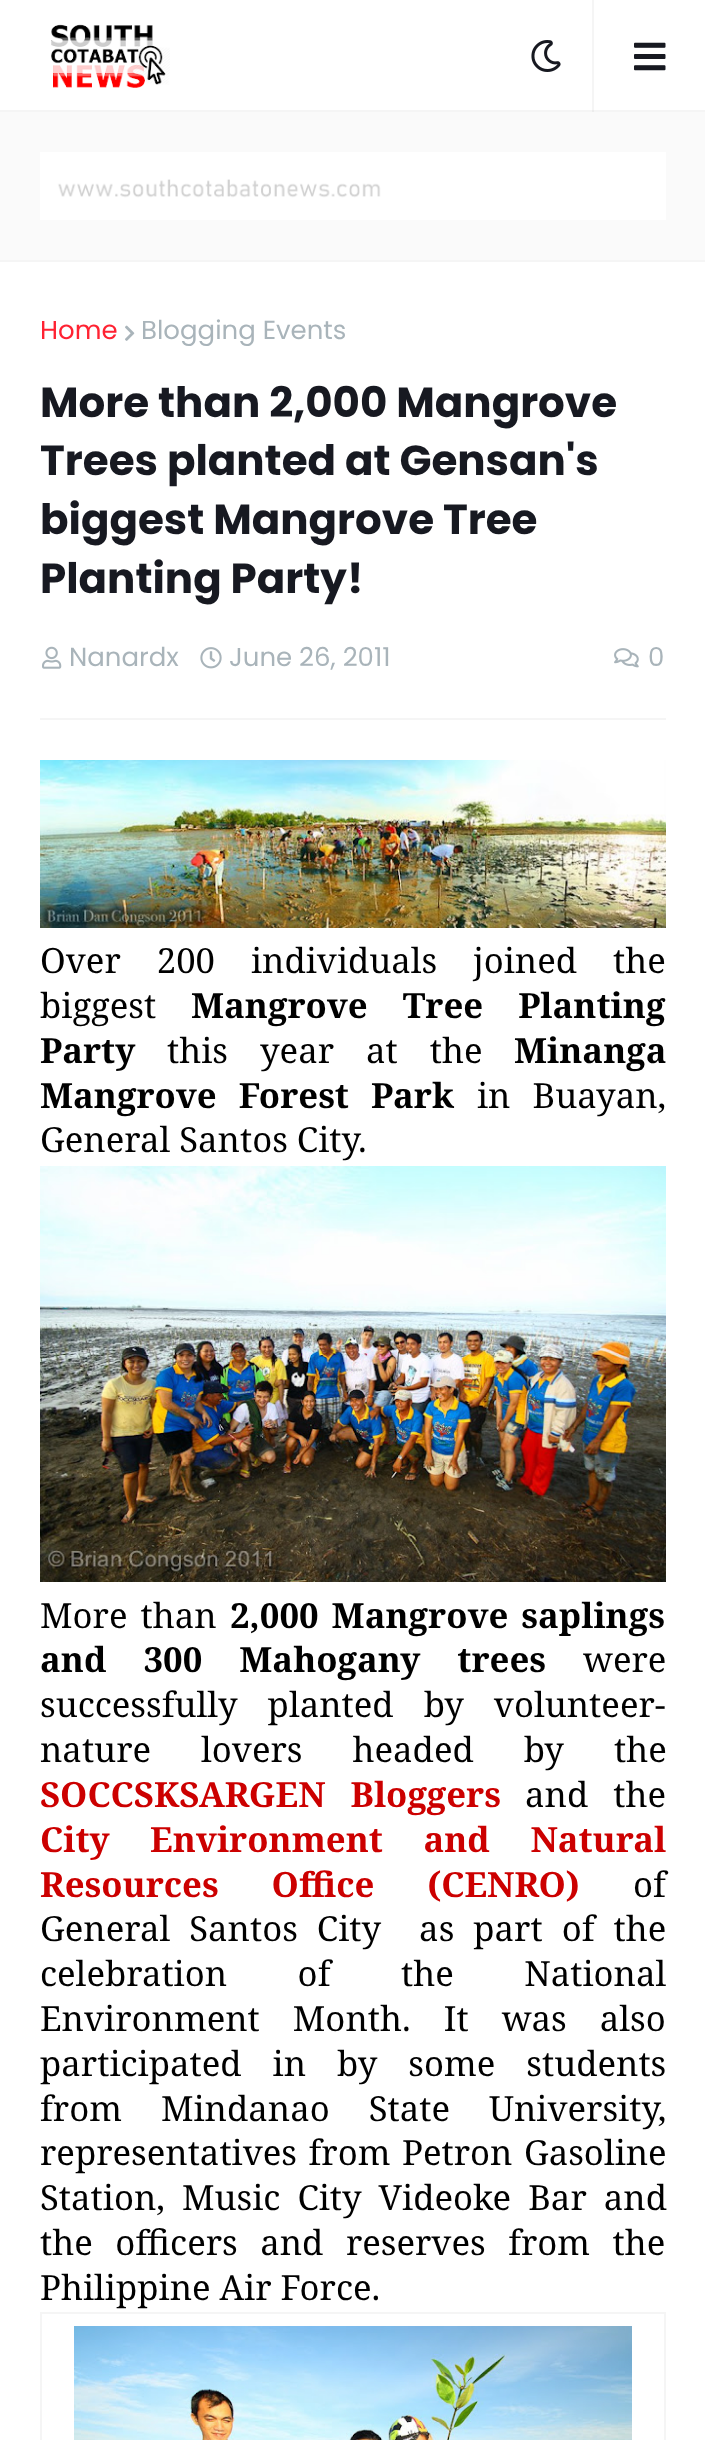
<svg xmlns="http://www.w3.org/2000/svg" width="705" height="2440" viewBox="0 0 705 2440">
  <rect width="100%" height="100%" fill="rgb(255,255,255)"/>
  <rect x="592" y="0" width="2" height="112" fill="rgb(245,245,245)"/>
  <rect x="0" y="110" width="705" height="2" fill="rgb(245,245,245)"/>
  <rect x="592" y="110" width="2" height="2" fill="rgb(236,236,236)"/>
  <image x="51" y="24" width="119" height="64" href="pic1.png"/>
  <image x="531" y="40" width="30" height="32" href="pic2.png"/>
  <image x="634" y="42" width="32" height="29" href="pic3.png"/>
  <rect x="0" y="260" width="705" height="2" fill="rgb(245,245,245)"/>
  <rect x="0" y="112" width="705" height="148" fill="rgb(250,250,250)"/>
  <image x="40" y="152" width="626" height="68" href="pic4.png"/>
  <rect x="40" y="718" width="626" height="2" fill="rgb(245,245,245)"/>
  <text x="40" y="339" font-family="Poppins" font-size="26" fill="rgb(255,34,50)">Home</text>
  <image x="125" y="325" width="10" height="16" href="pic5.png"/>
  <text x="141" y="339" font-family="Poppins" font-size="26" fill="rgb(169,180,186)">Blogging Events</text>
  <g font-family="Poppins" font-size="42" font-weight="bold" fill="rgb(23,25,33)">
    <text>
      <tspan x="40" y="417">More than 2,000 Mangrove</tspan>
      <tspan x="40" y="475">Trees planted at Gensan's</tspan>
      <tspan x="40" y="534">biggest Mangrove Tree</tspan>
      <tspan x="40" y="593">Planting Party!</tspan>
    </text>
  </g>
  <image x="42" y="646" width="20" height="23" href="pic6.png"/>
  <text x="69" y="666" font-family="Poppins" font-size="26" fill="rgb(169,180,186)">Nanardx</text>
  <image x="200" y="647" width="22" height="22" href="pic7.png"/>
  <text x="229" y="666" font-family="Poppins" font-size="26" fill="rgb(169,180,186)">June 26, 2011</text>
  <image x="614" y="648" width="25" height="20" href="pic8.png"/>
  <text x="648" y="666" font-family="Poppins" font-size="26" fill="rgb(169,180,186)">0</text>
  <image x="40" y="760" width="626" height="168" href="pic9.png"/>
  <g font-family="Noto Serif" font-size="34.7" fill="rgb(0,0,0)">
    <text>
      <tspan x="40" y="973" word-spacing="27">Over 200 individuals joined the</tspan>
      <tspan x="40" y="1018">biggest</tspan>
    </text>
  </g>
  <g font-family="Noto Serif" font-size="34.7" font-weight="bold" fill="rgb(0,0,0)">
    <text x="191" y="1018" word-spacing="26">Mangrove Tree Planting</text>
    <text x="40" y="1063">Party</text>
  </g>
  <text x="167" y="1063" word-spacing="23" font-family="Noto Serif" font-size="34.7" fill="rgb(0,0,0)">this year at the</text>
  <g font-family="Noto Serif" font-size="34.7" font-weight="bold" fill="rgb(0,0,0)">
    <text x="514" y="1063">Minanga</text>
    <text x="40" y="1108" word-spacing="13">Mangrove Forest Park</text>
  </g>
  <g font-family="Noto Serif" font-size="34.7" fill="rgb(0,0,0)">
    <text x="477" y="1108" word-spacing="13">in Buayan,</text>
    <text x="40" y="1152">General Santos City.</text>
  </g>
  <image x="40" y="1166" width="626" height="416" href="pic10.png"/>
  <text x="40" y="1628" word-spacing="4" font-family="Noto Serif" font-size="34.7" fill="rgb(0,0,0)">More than</text>
  <g font-family="Noto Serif" font-size="34.7" font-weight="bold" fill="rgb(0,0,0)">
    <text x="230" y="1628" word-spacing="4">2,000 Mangrove saplings</text>
    <text x="40" y="1672" word-spacing="28">and 300 Mahogany trees</text>
  </g>
  <g font-family="Noto Serif" font-size="34.7" fill="rgb(0,0,0)">
    <text x="583" y="1672">were</text>
    <text>
      <tspan x="40" y="1717" word-spacing="21">successfully planted by volunteer-</tspan>
      <tspan x="40" y="1762" word-spacing="41">nature lovers headed by the</tspan>
    </text>
  </g>
  <text x="40" y="1807" word-spacing="16" font-family="Noto Serif" font-size="34.7" font-weight="bold" fill="rgb(204,0,0)">SOCCSKSARGEN Bloggers</text>
  <text x="525" y="1807" word-spacing="16" font-family="Noto Serif" font-size="34.7" fill="rgb(0,0,0)">and the</text>
  <g font-family="Noto Serif" font-size="34.7" font-weight="bold" fill="rgb(204,0,0)">
    <text>
      <tspan x="40" y="1852" word-spacing="31.5">City Environment and Natural</tspan>
      <tspan x="40" y="1897" word-spacing="44">Resources Office (CENRO)</tspan>
    </text>
  </g>
  <g font-family="Noto Serif" font-size="34.7" fill="rgb(0,0,0)">
    <text x="633" y="1897">of</text>
    <text xml:space="preserve"><tspan x="40" y="1941" word-spacing="10">General Santos City  as part of the</tspan><tspan x="40" y="1986" word-spacing="61.5">celebration of the National</tspan><tspan x="40" y="2031" word-spacing="24">Environment Month. It was also</tspan><tspan x="40" y="2076" word-spacing="22">participated in by some students</tspan><tspan x="40" y="2121" word-spacing="30">from Mindanao State University,</tspan><tspan x="40" y="2165" word-spacing="2.5">representatives from Petron Gasoline</tspan><tspan x="40" y="2210" word-spacing="8">Station, Music City Videoke Bar and</tspan><tspan x="40" y="2255" word-spacing="13.5">the officers and reserves from the</tspan><tspan x="40" y="2300">Philippine Air Force.</tspan></text>
  </g>
  <rect x="41" y="2313" width="624" height="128" fill="none" stroke="rgb(245,245,245)" stroke-width="2"/>
  <image x="74" y="2326" width="558" height="114" href="pic11.png"/>
</svg>
